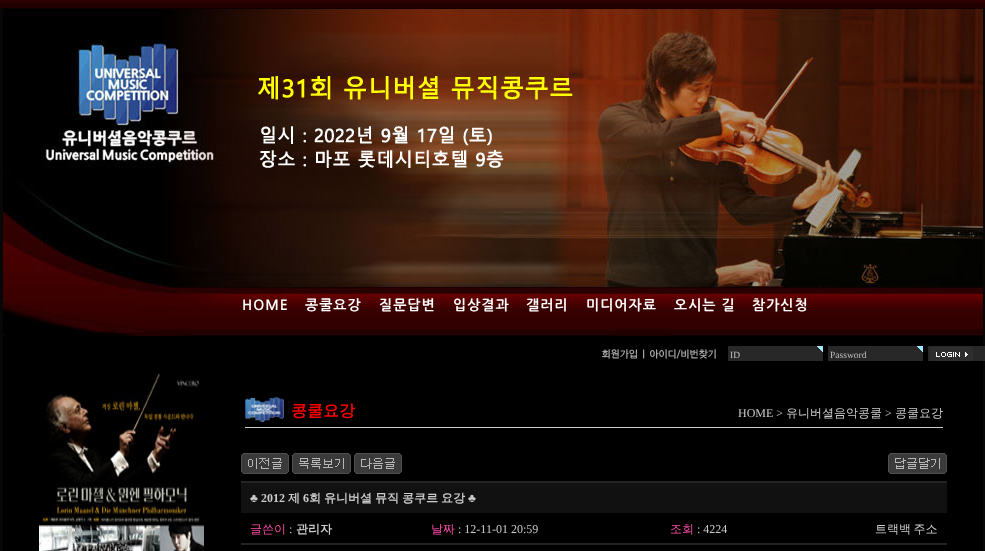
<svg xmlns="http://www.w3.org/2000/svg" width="985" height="551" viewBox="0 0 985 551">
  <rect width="100%" height="100%" fill="rgb(255,255,255)"/>
  <image x="0" y="0" width="985" height="551" href="pic1.png"/>
  <rect x="3" y="336" width="980" height="215" fill="rgb(0,0,0)"/>
  <image x="3" y="0" width="980" height="286" href="pic2.png"/>
  <image x="3" y="286" width="980" height="50" href="pic3.png"/>
  <g font-family="NanumGothic" font-size="14" font-weight="bold" letter-spacing="1" fill="rgb(255,255,255)">
    <text x="242" y="310">HOME</text>
    <text x="305" y="310">콩쿨요강</text>
    <text x="379" y="310">질문답변</text>
    <text x="453" y="310">입상결과</text>
    <text x="526" y="310">갤러리</text>
    <text x="586" y="310">미디어자료</text>
    <text x="674" y="310">오시는 길</text>
    <text x="752" y="310">참가신청</text>
  </g>
  <image x="39" y="373" width="165" height="178" href="pic4.png"/>
  <image x="602" y="349" width="42" height="10" href="pic5.png"/>
  <image x="644" y="349" width="72" height="10" href="pic6.png"/>
  <rect x="728" y="346" width="95" height="15" fill="rgb(40,40,40)"/>
  <image x="817" y="346" width="6" height="6" href="pic7.png"/>
  <text x="730" y="358" font-family="Liberation Serif" font-size="9.5" fill="rgb(192,192,192)">ID</text>
  <rect x="828" y="346" width="95" height="15" fill="rgb(40,40,40)"/>
  <image x="917" y="346" width="6" height="6" href="pic7.png"/>
  <text x="830" y="358" font-family="Liberation Serif" font-size="9.5" fill="rgb(192,192,192)">Password</text>
  <rect x="928" y="346" width="57" height="15" fill="rgb(40,40,40)"/>
  <image x="930" y="347" width="43" height="14" href="pic8.png"/>
  <image x="245" y="397" width="39" height="25" href="pic9.png"/>
  <text x="291" y="416" font-family="WenQuanYi Zen Hei" font-size="16" font-weight="bold" fill="rgb(255,0,0)">콩쿨요강</text>
  <text x="738" y="417" font-family="Liberation Serif" font-size="12" fill="rgb(204,204,204)">HOME &gt;</text>
  <text x="786" y="417" font-family="WenQuanYi Zen Hei" font-size="12" font-weight="500" fill="rgb(204,204,204)">유니버셜음악콩쿨</text>
  <text x="885" y="417" font-family="Liberation Serif" font-size="12" fill="rgb(204,204,204)">&gt;</text>
  <text x="895" y="417" font-family="WenQuanYi Zen Hei" font-size="12" font-weight="500" fill="rgb(204,204,204)">콩쿨요강</text>
  <rect x="245" y="427" width="698" height="1" fill="rgb(204,204,204)"/>
  <image x="241" y="453" width="48" height="21" href="pic10.png"/>
  <image x="292" y="453" width="59" height="21" href="pic11.png"/>
  <image x="354" y="453" width="48" height="21" href="pic12.png"/>
  <image x="888" y="453" width="59" height="21" href="pic13.png"/>
  <rect x="241" y="481" width="706" height="2" fill="rgb(36,36,36)"/>
  <rect x="241" y="483" width="706" height="30" fill="rgb(17,17,17)"/>
  <text x="250" y="502" font-family="Liberation Serif" font-size="12" font-weight="bold" fill="rgb(204,204,204)">♣ 2012</text>
  <text x="288" y="502" font-family="WenQuanYi Zen Hei" font-size="12" font-weight="bold" fill="rgb(204,204,204)">제</text>
  <text x="303" y="502" font-family="Liberation Serif" font-size="12" font-weight="bold" fill="rgb(204,204,204)">6</text>
  <g font-family="WenQuanYi Zen Hei" font-size="12" font-weight="bold" fill="rgb(204,204,204)">
    <text x="309" y="502">회</text>
    <text x="324" y="502">유니버셜</text>
    <text x="375" y="502">뮤직</text>
    <text x="402" y="502">콩쿠르</text>
    <text x="441" y="502">요강</text>
  </g>
  <text x="468" y="502" font-family="Liberation Serif" font-size="12" font-weight="bold" fill="rgb(204,204,204)">♣</text>
  <text x="250" y="533" font-family="WenQuanYi Zen Hei" font-size="12" font-weight="500" fill="rgb(255,80,170)">글쓴이</text>
  <text x="289" y="533" font-family="Liberation Serif" font-size="12" fill="rgb(204,204,204)">:</text>
  <text x="296" y="533" font-family="WenQuanYi Zen Hei" font-size="12" font-weight="bold" fill="rgb(204,204,204)">관리자</text>
  <text x="431" y="533" font-family="WenQuanYi Zen Hei" font-size="12" font-weight="500" fill="rgb(255,80,170)">날짜</text>
  <text x="458" y="533" font-family="Liberation Serif" font-size="12" fill="rgb(204,204,204)">: 12-11-01 20:59</text>
  <text x="670" y="533" font-family="WenQuanYi Zen Hei" font-size="12" font-weight="500" fill="rgb(255,80,170)">조회</text>
  <text x="697" y="533" font-family="Liberation Serif" font-size="12" fill="rgb(204,204,204)">: 4224</text>
  <text x="875" y="533" word-spacing="-1" font-family="WenQuanYi Zen Hei" font-size="12" font-weight="500" fill="rgb(204,204,204)">트랙백 주소</text>
  <rect x="241" y="543" width="706" height="2" fill="rgb(36,36,36)"/>
</svg>
